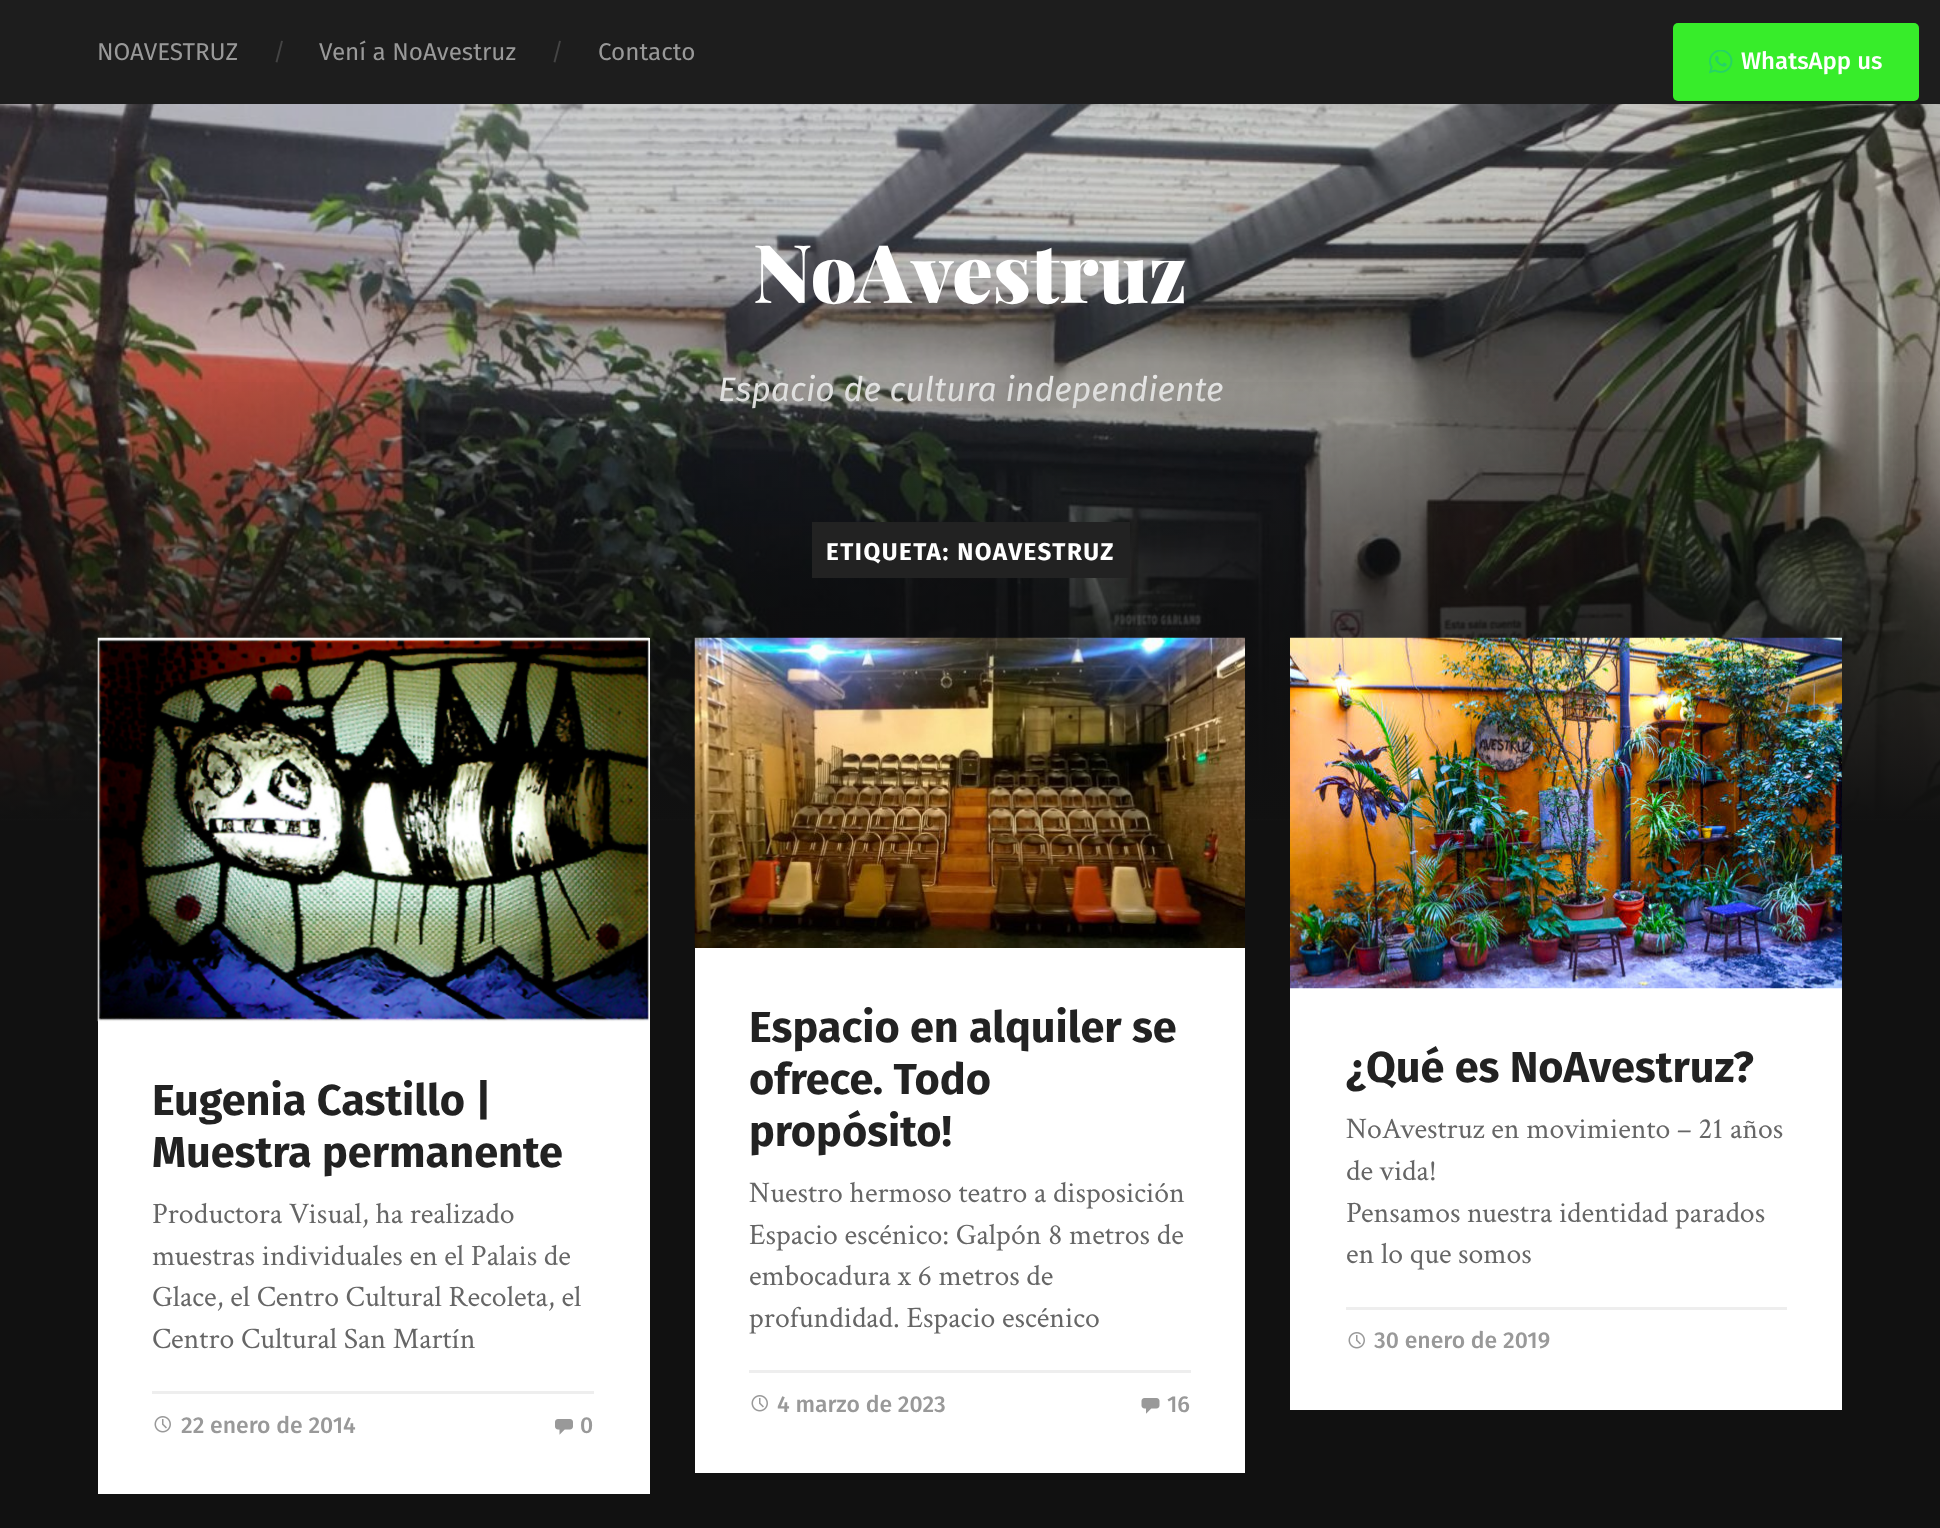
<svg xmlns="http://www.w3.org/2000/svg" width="1940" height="1528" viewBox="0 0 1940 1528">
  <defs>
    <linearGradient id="g1" gradientUnits="userSpaceOnUse" x1="971" y1="372" x2="971" y2="822"><stop offset="0" stop-color="rgb(17,17,17)" stop-opacity="0"/><stop offset="1" stop-color="rgb(17,17,17)"/></linearGradient>
  </defs>
  <rect width="100%" height="100%" fill="rgb(255,255,255)"/>
  <rect x="0" y="0" width="1940" height="104" fill="rgb(29,29,29)"/>
  <text x="97" y="60" font-family="Fira Sans" font-size="24.25" fill="rgb(153,153,153)">NOAVESTRUZ</text>
  <text x="273" y="60" font-family="Fira Sans" font-size="24" fill="rgb(68,68,68)">/</text>
  <text x="319" y="60" font-family="Fira Sans" font-size="24.25" fill="rgb(153,153,153)">Vení a NoAvestruz</text>
  <text x="551" y="60" font-family="Fira Sans" font-size="24" fill="rgb(68,68,68)">/</text>
  <text x="598" y="60" font-family="Fira Sans" font-size="24.25" fill="rgb(153,153,153)">Contacto</text>
  <rect x="1673" y="23" width="246" height="78" rx="5" fill="rgb(55,237,42)"/>
  <image x="1709" y="50" width="24" height="24" href="pic1.png"/>
  <text x="1741" y="69" font-family="Fira Sans" font-size="24" font-weight="500" fill="rgb(255,255,255)">WhatsApp us</text>
  <image x="0" y="104" width="1940" height="715" href="pic2.png"/>
  <text x="753" y="303" font-family="Playfair Display" font-size="81" font-weight="900" fill="rgb(255,255,255)">NoAvestruz</text>
  <text x="718" y="401" font-family="Fira Sans" font-size="33.75" font-style="italic" fill="rgb(233,233,232)">Espacio de cultura independiente</text>
  <rect x="0" y="382" width="1940" height="440" fill="url(#g1)"/>
  <rect x="812" y="522" width="318" height="56" fill="rgb(34,34,34)"/>
  <text x="826" y="560" font-family="Fira Sans" font-size="24.25" font-weight="bold" letter-spacing="1.5" fill="rgb(255,255,255)">ETIQUETA: NOAVESTRUZ</text>
  <rect x="0" y="822" width="1940" height="706" fill="rgb(17,17,17)"/>
  <rect x="98" y="638" width="552" height="856" fill="rgb(255,255,255)"/>
  <image x="97" y="637" width="553" height="385" href="pic3.png"/>
  <g font-family="Fira Sans" font-size="43.25" font-weight="bold" fill="rgb(34,34,34)">
    <text>
      <tspan x="152" y="1115">Eugenia Castillo |</tspan>
      <tspan x="152" y="1167">Muestra permanente</tspan>
    </text>
  </g>
  <g font-family="Crimson Text" font-size="29.75" fill="rgb(102,102,102)">
    <text>
      <tspan x="152" y="1223">Productora Visual, ha realizado</tspan>
      <tspan x="152" y="1265">muestras individuales en el Palais de</tspan>
      <tspan x="152" y="1306">Glace, el Centro Cultural Recoleta, el</tspan>
      <tspan x="152" y="1348">Centro Cultural San Martín</tspan>
    </text>
  </g>
  <rect x="152" y="1391" width="442" height="3" fill="rgb(238,238,238)"/>
  <image x="154" y="1416" width="17" height="17" href="pic4.png"/>
  <text x="181" y="1433" font-family="Fira Sans" font-size="23" font-weight="500" fill="rgb(153,153,153)">22 enero de 2014</text>
  <image x="555" y="1419" width="18" height="16" href="pic5.png"/>
  <text x="580" y="1433" font-family="Fira Sans" font-size="23" font-weight="500" fill="rgb(153,153,153)">0</text>
  <rect x="695" y="948" width="550" height="525" fill="rgb(255,255,255)"/>
  <image x="694" y="637" width="551" height="311" href="pic6.png"/>
  <g font-family="Fira Sans" font-size="43.25" font-weight="bold" fill="rgb(34,34,34)">
    <text>
      <tspan x="749" y="1042">Espacio en alquiler se</tspan>
      <tspan x="749" y="1094">ofrece. Todo</tspan>
      <tspan x="749" y="1146">propósito!</tspan>
    </text>
  </g>
  <g font-family="Crimson Text" font-size="29.75" fill="rgb(102,102,102)">
    <text>
      <tspan x="749" y="1202">Nuestro hermoso teatro a disposición</tspan>
      <tspan x="749" y="1244">Espacio escénico: Galpón 8 metros de</tspan>
      <tspan x="749" y="1285">embocadura x 6 metros de</tspan>
      <tspan x="749" y="1327">profundidad. Espacio escénico</tspan>
    </text>
  </g>
  <rect x="749" y="1370" width="442" height="3" fill="rgb(238,238,238)"/>
  <image x="751" y="1395" width="17" height="17" href="pic4.png"/>
  <text x="777" y="1412" font-family="Fira Sans" font-size="23" font-weight="500" fill="rgb(153,153,153)">4 marzo de 2023</text>
  <image x="1141" y="1398" width="19" height="16" href="pic7.png"/>
  <text x="1167" y="1412" font-family="Fira Sans" font-size="23" font-weight="500" fill="rgb(153,153,153)">16</text>
  <rect x="1290" y="988" width="552" height="422" fill="rgb(255,255,255)"/>
  <image x="1290" y="637" width="552" height="352" href="pic8.png"/>
  <text x="1346" y="1082" font-family="Fira Sans" font-size="43.25" font-weight="bold" fill="rgb(34,34,34)">¿Qué es NoAvestruz?</text>
  <g font-family="Crimson Text" font-size="29.75" fill="rgb(102,102,102)">
    <text>
      <tspan x="1346" y="1138">NoAvestruz en movimiento – 21 años</tspan>
      <tspan x="1346" y="1180">de vida!</tspan>
      <tspan x="1346" y="1222">Pensamos nuestra identidad parados</tspan>
      <tspan x="1346" y="1263">en lo que somos</tspan>
    </text>
  </g>
  <rect x="1346" y="1307" width="441" height="3" fill="rgb(238,238,238)"/>
  <image x="1348" y="1332" width="17" height="17" href="pic4.png"/>
  <text x="1374" y="1348" font-family="Fira Sans" font-size="23" font-weight="500" fill="rgb(153,153,153)">30 enero de 2019</text>
</svg>
